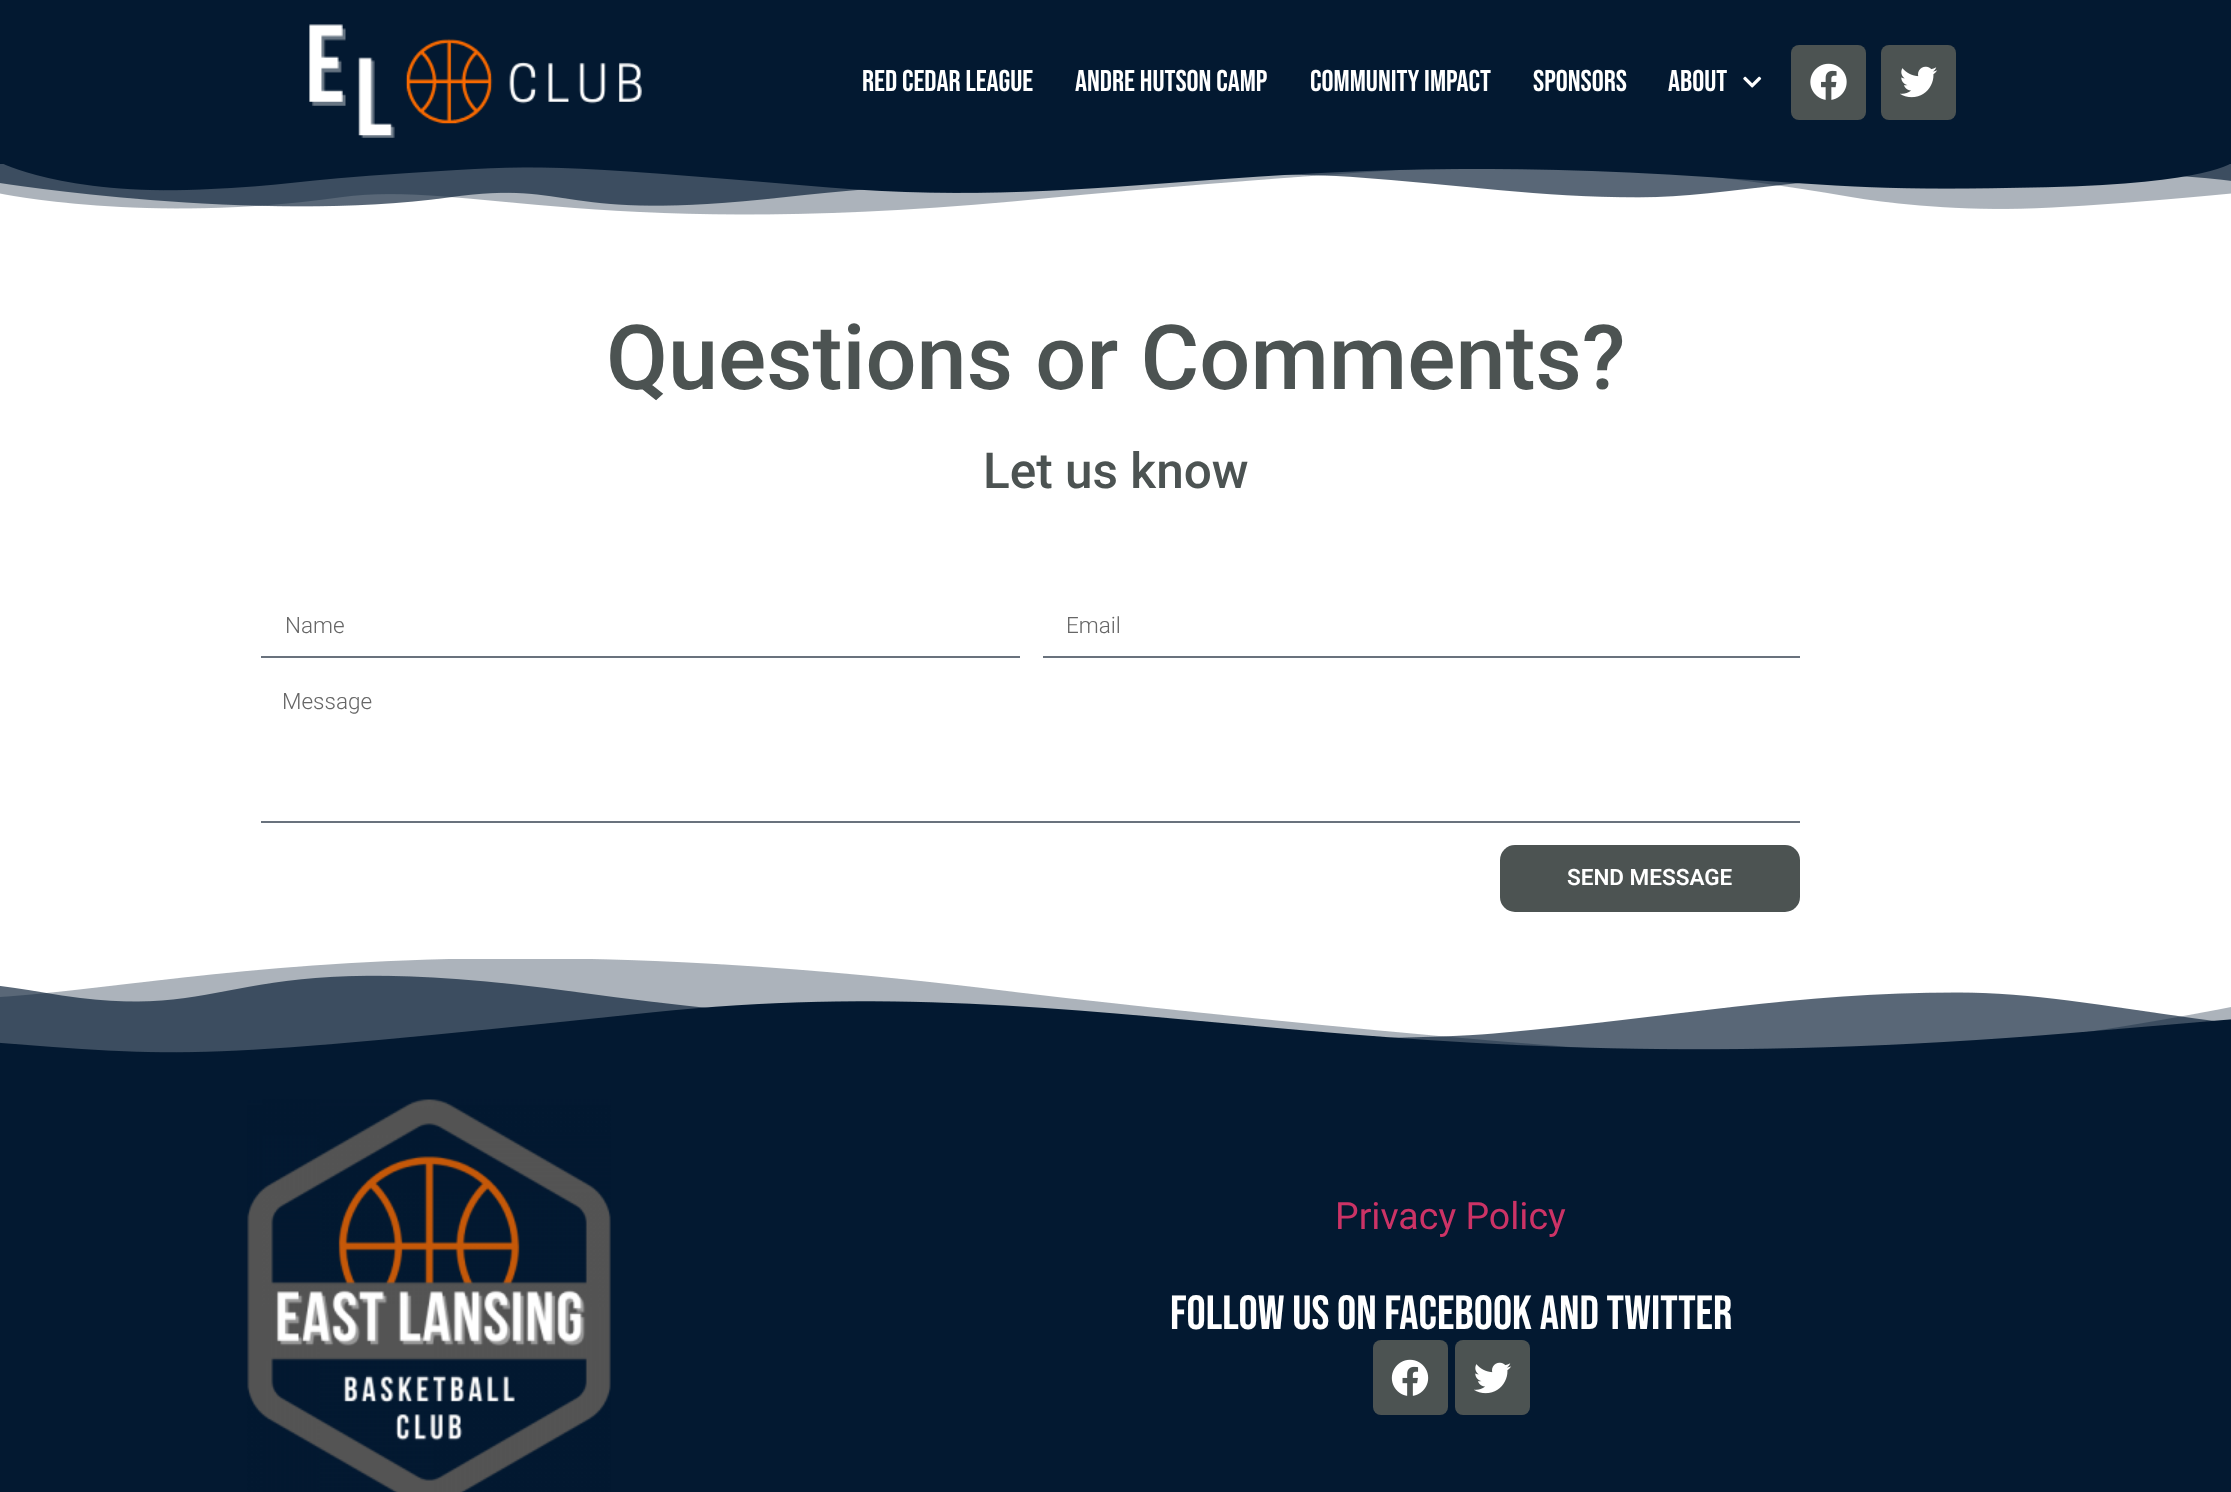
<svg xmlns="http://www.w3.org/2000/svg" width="2231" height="1492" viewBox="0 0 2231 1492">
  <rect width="100%" height="100%" fill="rgb(255,255,255)"/>
  <rect x="0" y="0" width="2231" height="164" fill="rgb(3,25,49)"/>
  <image x="309" y="24" width="333" height="114" href="pic1.png"/>
  <g font-family="Bebas Neue" font-size="30" fill="rgb(255,255,255)">
    <text x="862" y="91">Red Cedar League</text>
    <text x="1075" y="91">Andre Hutson Camp</text>
    <text x="1310" y="91">Community Impact</text>
    <text x="1533" y="91">Sponsors</text>
    <text x="1668" y="91">About</text>
  </g>
  <image x="1743" y="76" width="19" height="12" href="pic2.png"/>
  <rect x="1791" y="45" width="75" height="75" rx="8" fill="rgb(76,83,82)"/>
  <image x="1810" y="63" width="37" height="37" href="pic3.png"/>
  <rect x="1881" y="45" width="75" height="75" rx="8" fill="rgb(76,83,82)"/>
  <image x="1900" y="66" width="38" height="32" href="pic4.png"/>
  <image x="0" y="164" width="2231" height="51" href="pic5.png"/>
  <text x="606" y="389" font-family="Roboto" font-size="90" font-weight="500" fill="rgb(76,83,82)">Questions or Comments?</text>
  <text x="983" y="488" font-family="Roboto" font-size="49.5" font-weight="500" fill="rgb(76,83,82)">Let us know</text>
  <rect x="261" y="656" width="759" height="2" fill="rgb(105,114,125)"/>
  <text x="285" y="633" font-family="Roboto" font-size="22.5" font-weight="300" fill="rgb(102,102,102)">Name</text>
  <rect x="1043" y="656" width="757" height="2" fill="rgb(105,114,125)"/>
  <text x="1066" y="633" font-family="Roboto" font-size="22.5" font-weight="300" fill="rgb(102,102,102)">Email</text>
  <rect x="261" y="821" width="1539" height="2" fill="rgb(105,114,125)"/>
  <text x="282" y="709" font-family="Roboto" font-size="22.5" font-weight="300" fill="rgb(102,102,102)">Message</text>
  <rect x="1500" y="845" width="300" height="67" rx="15" fill="rgb(76,83,82)"/>
  <text x="1567" y="885" font-family="Roboto" font-size="22.5" font-weight="600" fill="rgb(255,255,255)">SEND MESSAGE</text>
  <image x="0" y="959" width="2231" height="103" href="pic6.png"/>
  <rect x="0" y="1062" width="2231" height="430" fill="rgb(3,25,49)"/>
  <image x="247" y="1099" width="364" height="393" href="pic7.png"/>
  <text x="1335" y="1229" font-family="Roboto" font-size="37.5" fill="rgb(204,51,102)">Privacy Policy</text>
  <text x="1170" y="1329" font-family="Bebas Neue" font-size="48" fill="rgb(255,255,255)">follow us on facebook and twitter</text>
  <rect x="1373" y="1340" width="75" height="75" rx="8" fill="rgb(76,83,82)"/>
  <image x="1391" y="1359" width="38" height="37" href="pic8.png"/>
  <rect x="1455" y="1340" width="75" height="75" rx="8" fill="rgb(76,83,82)"/>
  <image x="1474" y="1362" width="38" height="32" href="pic4.png"/>
</svg>
